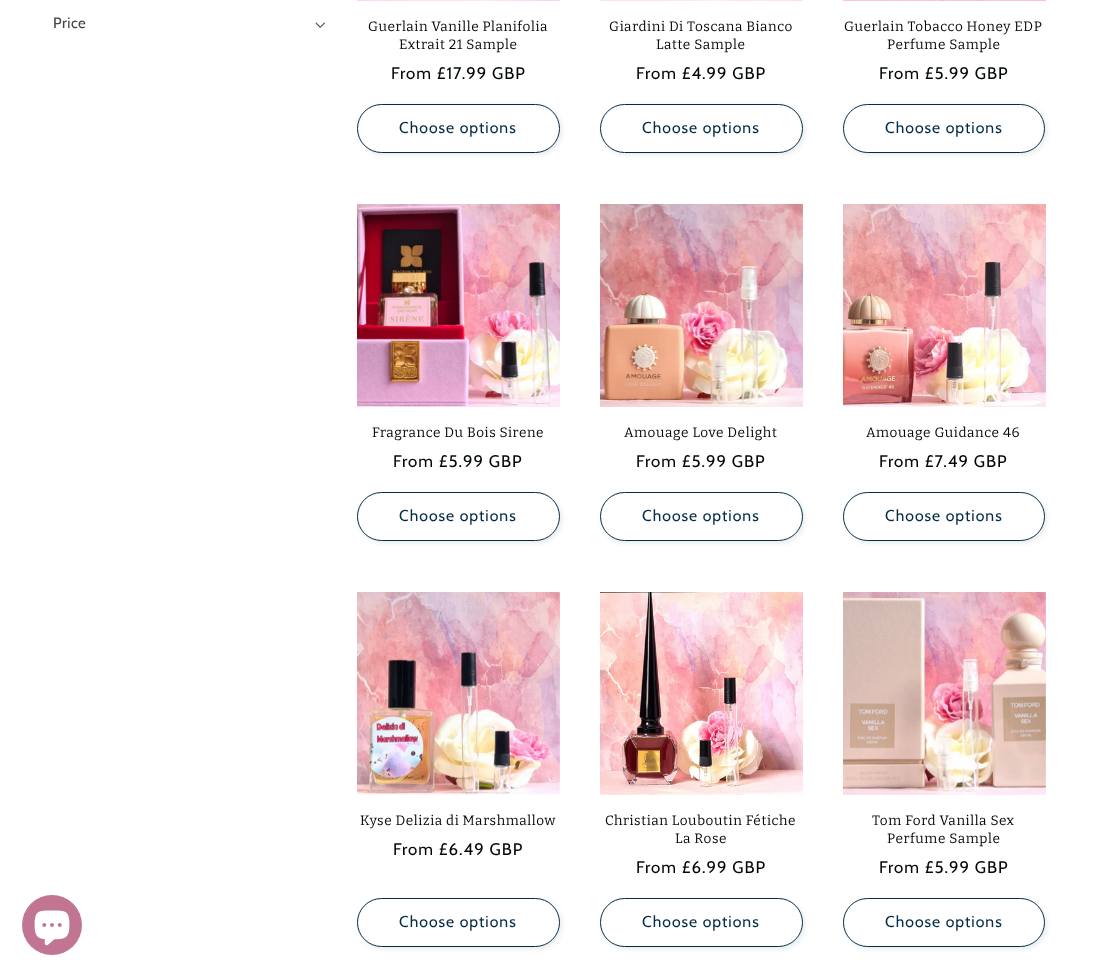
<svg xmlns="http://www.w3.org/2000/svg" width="1098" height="976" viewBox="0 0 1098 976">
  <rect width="100%" height="100%" fill="rgb(255,255,255)"/>
  <circle cx="52" cy="925" r="30" fill="rgb(193,117,147)"/>
  <image x="34" y="910" width="36" height="36" href="pic1.png"/>
  <text x="53" y="28" font-family="Cabin" font-size="15" letter-spacing="0.5" fill="rgb(65,68,70)">Price</text>
  <image x="315" y="22" width="10" height="6" href="pic2.png"/>
  <image x="357" y="0" width="203" height="1" href="pic3.png"/>
  <g font-family="Bitter" font-size="13.6" letter-spacing="0.6" fill="rgb(1,6,8)">
    <text x="368" y="31">Guerlain Vanille Planifolia</text>
    <text x="399" y="49">Extrait 21 Sample</text>
  </g>
  <text x="391" y="79" font-family="Cabin" font-size="16.75" letter-spacing="1" fill="rgb(1,6,8)">From £17.99 GBP</text>
  <rect x="359" y="106" width="203" height="49" rx="24.5" fill="rgba(16,57,72,0.1)" filter="blur(2.5px)"/>
  <rect x="357" y="104" width="203" height="49" rx="24.5" fill="rgb(255,255,255)"/>
  <rect x="357.5" y="104.5" width="202" height="48" rx="24" fill="none" stroke="rgb(255,255,255)"/>
  <rect x="357.5" y="104.5" width="202" height="48" rx="24" fill="none" stroke="rgb(5,44,70)"/>
  <text x="399" y="133" font-family="Cabin" font-size="15.75" letter-spacing="1" fill="rgb(5,44,70)">Choose options</text>
  <image x="600" y="0" width="203" height="1" href="pic4.png"/>
  <g font-family="Bitter" font-size="13.6" letter-spacing="0.6" fill="rgb(1,6,8)">
    <text x="609" y="31">Giardini Di Toscana Bianco</text>
    <text x="656" y="49">Latte Sample</text>
  </g>
  <text x="636" y="79" font-family="Cabin" font-size="16.75" letter-spacing="1" fill="rgb(1,6,8)">From £4.99 GBP</text>
  <rect x="602" y="106" width="203" height="49" rx="24.5" fill="rgba(16,57,72,0.1)" filter="blur(2.5px)"/>
  <rect x="600" y="104" width="203" height="49" rx="24.5" fill="rgb(255,255,255)"/>
  <rect x="600.5" y="104.5" width="202" height="48" rx="24" fill="none" stroke="rgb(255,255,255)"/>
  <rect x="600.5" y="104.5" width="202" height="48" rx="24" fill="none" stroke="rgb(5,44,70)"/>
  <text x="642" y="133" font-family="Cabin" font-size="15.75" letter-spacing="1" fill="rgb(5,44,70)">Choose options</text>
  <image x="843" y="0" width="203" height="1" href="pic5.png"/>
  <g font-family="Bitter" font-size="13.6" letter-spacing="0.6" fill="rgb(1,6,8)">
    <text x="844" y="31">Guerlain Tobacco Honey EDP</text>
    <text x="887" y="49">Perfume Sample</text>
  </g>
  <text x="879" y="79" font-family="Cabin" font-size="16.75" letter-spacing="1" fill="rgb(1,6,8)">From £5.99 GBP</text>
  <rect x="845" y="106" width="202" height="49" rx="24.5" fill="rgba(16,57,72,0.1)" filter="blur(2.5px)"/>
  <rect x="843" y="104" width="202" height="49" rx="24.5" fill="rgb(255,255,255)"/>
  <rect x="843.5" y="104.5" width="201" height="48" rx="24" fill="none" stroke="rgb(255,255,255)"/>
  <rect x="843.5" y="104.5" width="201" height="48" rx="24" fill="none" stroke="rgb(5,44,70)"/>
  <text x="885" y="133" font-family="Cabin" font-size="15.75" letter-spacing="1" fill="rgb(5,44,70)">Choose options</text>
  <image x="357" y="204" width="203" height="203" href="pic6.png"/>
  <text x="372" y="437" font-family="Bitter" font-size="13.6" letter-spacing="0.6" fill="rgb(1,6,8)">Fragrance Du Bois Sirene</text>
  <text x="393" y="467" font-family="Cabin" font-size="16.75" letter-spacing="1" fill="rgb(1,6,8)">From £5.99 GBP</text>
  <rect x="359" y="494" width="203" height="49" rx="24.5" fill="rgba(16,57,72,0.1)" filter="blur(2.5px)"/>
  <rect x="357" y="492" width="203" height="49" rx="24.5" fill="rgb(255,255,255)"/>
  <rect x="357.5" y="492.5" width="202" height="48" rx="24" fill="none" stroke="rgb(255,255,255)"/>
  <rect x="357.5" y="492.5" width="202" height="48" rx="24" fill="none" stroke="rgb(5,44,70)"/>
  <text x="399" y="521" font-family="Cabin" font-size="15.75" letter-spacing="1" fill="rgb(5,44,70)">Choose options</text>
  <image x="600" y="204" width="203" height="203" href="pic7.png"/>
  <text x="624" y="437" font-family="Bitter" font-size="13.6" letter-spacing="0.6" fill="rgb(1,6,8)">Amouage Love Delight</text>
  <text x="636" y="467" font-family="Cabin" font-size="16.75" letter-spacing="1" fill="rgb(1,6,8)">From £5.99 GBP</text>
  <rect x="602" y="494" width="203" height="49" rx="24.5" fill="rgba(16,57,72,0.1)" filter="blur(2.5px)"/>
  <rect x="600" y="492" width="203" height="49" rx="24.5" fill="rgb(255,255,255)"/>
  <rect x="600.5" y="492.5" width="202" height="48" rx="24" fill="none" stroke="rgb(255,255,255)"/>
  <rect x="600.5" y="492.5" width="202" height="48" rx="24" fill="none" stroke="rgb(5,44,70)"/>
  <text x="642" y="521" font-family="Cabin" font-size="15.75" letter-spacing="1" fill="rgb(5,44,70)">Choose options</text>
  <image x="843" y="204" width="203" height="203" href="pic8.png"/>
  <text x="866" y="437" font-family="Bitter" font-size="13.6" letter-spacing="0.6" fill="rgb(1,6,8)">Amouage Guidance 46</text>
  <text x="879" y="467" font-family="Cabin" font-size="16.75" letter-spacing="1" fill="rgb(1,6,8)">From £7.49 GBP</text>
  <rect x="845" y="494" width="202" height="49" rx="24.5" fill="rgba(16,57,72,0.1)" filter="blur(2.5px)"/>
  <rect x="843" y="492" width="202" height="49" rx="24.5" fill="rgb(255,255,255)"/>
  <rect x="843.5" y="492.5" width="201" height="48" rx="24" fill="none" stroke="rgb(255,255,255)"/>
  <rect x="843.5" y="492.5" width="201" height="48" rx="24" fill="none" stroke="rgb(5,44,70)"/>
  <text x="885" y="521" font-family="Cabin" font-size="15.75" letter-spacing="1" fill="rgb(5,44,70)">Choose options</text>
  <image x="357" y="592" width="203" height="203" href="pic9.png"/>
  <text x="360" y="825" font-family="Bitter" font-size="13.6" letter-spacing="0.6" fill="rgb(1,6,8)">Kyse Delizia di Marshmallow</text>
  <text x="393" y="855" font-family="Cabin" font-size="16.75" letter-spacing="1" fill="rgb(1,6,8)">From £6.49 GBP</text>
  <rect x="359" y="900" width="203" height="49" rx="24.5" fill="rgba(16,57,72,0.1)" filter="blur(2.5px)"/>
  <rect x="357" y="898" width="203" height="49" rx="24.5" fill="rgb(255,255,255)"/>
  <rect x="357.5" y="898.5" width="202" height="48" rx="24" fill="none" stroke="rgb(255,255,255)"/>
  <rect x="357.5" y="898.5" width="202" height="48" rx="24" fill="none" stroke="rgb(5,44,70)"/>
  <text x="399" y="927" font-family="Cabin" font-size="15.75" letter-spacing="1" fill="rgb(5,44,70)">Choose options</text>
  <image x="600" y="592" width="203" height="203" href="pic10.png"/>
  <g font-family="Bitter" font-size="13.6" letter-spacing="0.6" fill="rgb(1,6,8)">
    <text x="605" y="825">Christian Louboutin Fétiche</text>
    <text x="675" y="843">La Rose</text>
  </g>
  <text x="636" y="873" font-family="Cabin" font-size="16.75" letter-spacing="1" fill="rgb(1,6,8)">From £6.99 GBP</text>
  <rect x="602" y="900" width="203" height="49" rx="24.5" fill="rgba(16,57,72,0.1)" filter="blur(2.5px)"/>
  <rect x="600" y="898" width="203" height="49" rx="24.5" fill="rgb(255,255,255)"/>
  <rect x="600.5" y="898.5" width="202" height="48" rx="24" fill="none" stroke="rgb(255,255,255)"/>
  <rect x="600.5" y="898.5" width="202" height="48" rx="24" fill="none" stroke="rgb(5,44,70)"/>
  <text x="642" y="927" font-family="Cabin" font-size="15.75" letter-spacing="1" fill="rgb(5,44,70)">Choose options</text>
  <image x="843" y="592" width="203" height="203" href="pic11.png"/>
  <g font-family="Bitter" font-size="13.6" letter-spacing="0.6" fill="rgb(1,6,8)">
    <text x="872" y="825">Tom Ford Vanilla Sex</text>
    <text x="887" y="843">Perfume Sample</text>
  </g>
  <text x="879" y="873" font-family="Cabin" font-size="16.75" letter-spacing="1" fill="rgb(1,6,8)">From £5.99 GBP</text>
  <rect x="845" y="900" width="202" height="49" rx="24.5" fill="rgba(16,57,72,0.1)" filter="blur(2.5px)"/>
  <rect x="843" y="898" width="202" height="49" rx="24.5" fill="rgb(255,255,255)"/>
  <rect x="843.5" y="898.5" width="201" height="48" rx="24" fill="none" stroke="rgb(255,255,255)"/>
  <rect x="843.5" y="898.5" width="201" height="48" rx="24" fill="none" stroke="rgb(5,44,70)"/>
  <text x="885" y="927" font-family="Cabin" font-size="15.75" letter-spacing="1" fill="rgb(5,44,70)">Choose options</text>
</svg>
